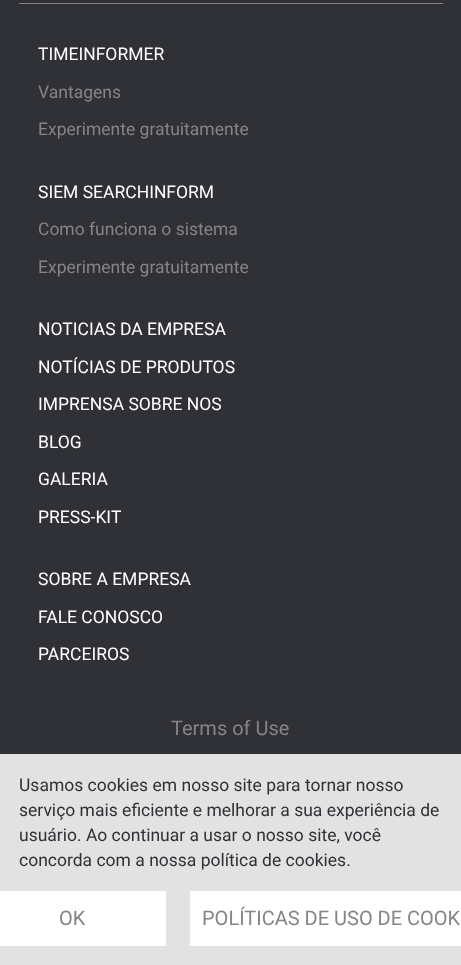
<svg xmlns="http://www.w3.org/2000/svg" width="461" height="965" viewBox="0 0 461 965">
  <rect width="100%" height="100%" fill="rgb(48,49,54)"/>
  <rect x="19" y="3" width="424" height="1" fill="rgb(133,133,133)"/>
  <text x="38" y="60" font-family="Roboto" font-size="17.5" fill="rgb(255,255,255)">TIMEINFORMER</text>
  <g font-family="Roboto" font-size="17.5" fill="rgb(133,133,133)">
    <text x="38" y="98">Vantagens</text>
    <text x="38" y="135">Experimente gratuitamente</text>
  </g>
  <text x="38" y="198" font-family="Roboto" font-size="17.5" fill="rgb(255,255,255)">SIEM SEARCHINFORM</text>
  <g font-family="Roboto" font-size="17.5" fill="rgb(133,133,133)">
    <text x="38" y="235">Como funciona o sistema</text>
    <text x="38" y="273">Experimente gratuitamente</text>
  </g>
  <g font-family="Roboto" font-size="17.5" fill="rgb(255,255,255)">
    <text x="38" y="335">NOTICIAS DA EMPRESA</text>
    <text x="38" y="373">NOTÍCIAS DE PRODUTOS</text>
    <text x="38" y="410">IMPRENSA SOBRE NOS</text>
    <text x="38" y="448">BLOG</text>
    <text x="38" y="485">GALERIA</text>
    <text x="38" y="523">PRESS-KIT</text>
    <text x="38" y="585">SOBRE A EMPRESA</text>
    <text x="38" y="623">FALE CONOSCO</text>
    <text x="38" y="660">PARCEIROS</text>
  </g>
  <text x="171" y="735" font-family="Roboto" font-size="20" fill="rgb(133,133,133)">Terms of Use</text>
  <rect x="0" y="754" width="461" height="211" fill="rgb(226,226,226)"/>
  <g font-family="Roboto" font-size="17.5" fill="rgb(48,49,54)">
    <text>
      <tspan x="19" y="791">Usamos cookies em nosso site para tornar nosso</tspan>
      <tspan x="19" y="816">serviço mais eficiente e melhorar a sua experiência de</tspan>
      <tspan x="19" y="841">usuário. Ao continuar a usar o nosso site, você</tspan>
      <tspan x="19" y="866">concorda com a nossa política de cookies.</tspan>
    </text>
  </g>
  <rect x="0" y="891" width="166" height="55" fill="rgb(255,255,255)"/>
  <text x="59" y="925" font-family="Roboto" font-size="20" fill="rgb(133,133,133)">OK</text>
  <rect x="190" y="891" width="271" height="55" fill="rgb(255,255,255)"/>
  <text x="202" y="925" font-family="Roboto" font-size="20" fill="rgb(133,133,133)">POLÍTICAS DE USO DE COOK</text>
</svg>
